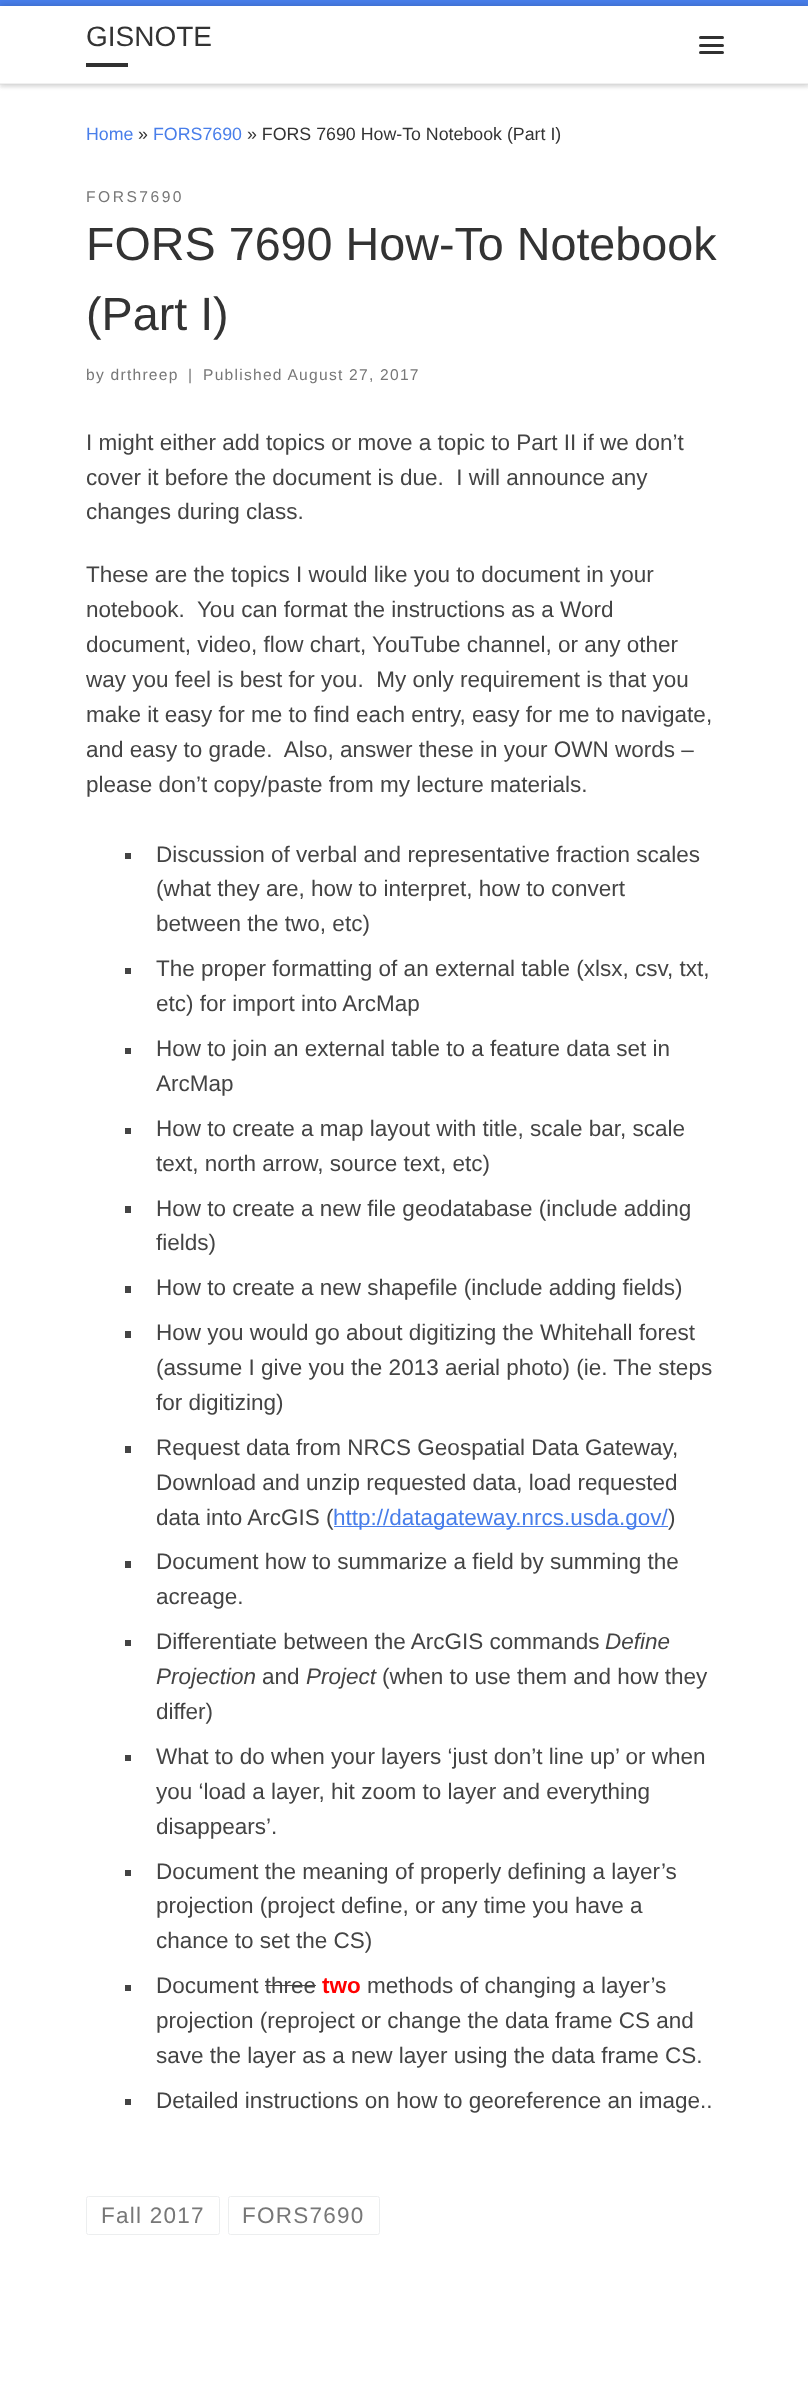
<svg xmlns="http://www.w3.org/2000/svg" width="808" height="2391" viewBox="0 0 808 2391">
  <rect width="100%" height="100%" fill="rgb(255,255,255)"/>
  <rect x="0" y="3" width="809" height="85" fill="rgba(102,102,102,0.08)" filter="blur(1px)"/>
  <rect x="0" y="0" width="808" height="6" fill="rgb(72,126,234)"/>
  <path d="M0 84V85H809V8V84Z" fill="rgb(239,239,239)"/>
  <rect x="0" y="6" width="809" height="78" fill="rgba(0,0,0,0.2)" filter="blur(3px)"/>
  <rect x="0" y="6" width="808" height="77" fill="rgb(255,255,255)"/>
  <text x="86" y="46" font-family="Liberation Sans" font-size="28" fill="rgb(51,51,51)">GISNOTE</text>
  <rect x="86" y="63" width="42" height="4" fill="rgb(49,49,49)"/>
  <rect x="699" y="36" width="25" height="3" rx="1.5" fill="rgb(49,49,49)"/>
  <rect x="699" y="44" width="25" height="3" rx="1.5" fill="rgb(49,49,49)"/>
  <rect x="699" y="51" width="25" height="3" rx="1.5" fill="rgb(49,49,49)"/>
  <rect x="0" y="83" width="808" height="1" fill="rgb(240,240,240)"/>
  <text x="86" y="140" font-family="Liberation Sans" font-size="17.8" fill="rgb(72,126,234)">Home</text>
  <text x="138" y="140" font-family="Liberation Sans" font-size="17.8" fill="rgb(51,51,51)">»</text>
  <text x="153" y="140" font-family="Liberation Sans" font-size="17.8" fill="rgb(72,126,234)">FORS7690</text>
  <text x="247" y="140" font-family="Liberation Sans" font-size="17.8" fill="rgb(51,51,51)">» FORS 7690 How-To Notebook (Part I)</text>
  <text x="86" y="202" font-family="Liberation Sans" font-size="15.6" letter-spacing="2.5" fill="rgb(119,119,119)">FORS7690</text>
  <g font-family="Liberation Sans" font-size="46.7" fill="rgb(51,51,51)">
    <text>
      <tspan x="86" y="260">FORS 7690 How-To Notebook</tspan>
      <tspan x="86" y="330">(Part I)</tspan>
    </text>
  </g>
  <g font-family="Liberation Sans" font-size="15.6" letter-spacing="1.25" fill="rgb(119,119,119)">
    <text x="86" y="380">by drthreep</text>
    <text x="188" y="380">|</text>
    <text x="203" y="380">Published August 27, 2017</text>
  </g>
  <g font-family="Liberation Sans" font-size="22.5" fill="rgb(68,68,68)">
    <text xml:space="preserve"><tspan x="86" y="450">I might either add topics or move a topic to Part II if we don’t</tspan><tspan x="86" y="485">cover it before the document is due.  I will announce any</tspan><tspan x="86" y="519">changes during class.</tspan></text>
    <text xml:space="preserve"><tspan x="86" y="582">These are the topics I would like you to document in your</tspan><tspan x="86" y="617">notebook.  You can format the instructions as a Word</tspan><tspan x="86" y="652">document, video, flow chart, YouTube channel, or any other</tspan><tspan x="86" y="687">way you feel is best for you.  My only requirement is that you</tspan><tspan x="86" y="722">make it easy for me to find each entry, easy for me to navigate,</tspan><tspan x="86" y="757">and easy to grade.  Also, answer these in your OWN words –</tspan><tspan x="86" y="792">please don’t copy/paste from my lecture materials.</tspan></text>
  </g>
  <rect x="125" y="853" width="6" height="6" fill="rgb(68,68,68)"/>
  <g font-family="Liberation Sans" font-size="22.5" fill="rgb(68,68,68)">
    <text>
      <tspan x="156" y="862">Discussion of verbal and representative fraction scales</tspan>
      <tspan x="156" y="896">(what they are, how to interpret, how to convert</tspan>
      <tspan x="156" y="931">between the two, etc)</tspan>
    </text>
  </g>
  <rect x="125" y="968" width="6" height="6" fill="rgb(68,68,68)"/>
  <g font-family="Liberation Sans" font-size="22.5" fill="rgb(68,68,68)">
    <text>
      <tspan x="156" y="976">The proper formatting of an external table (xlsx, csv, txt,</tspan>
      <tspan x="156" y="1011">etc) for import into ArcMap</tspan>
    </text>
  </g>
  <rect x="125" y="1048" width="6" height="6" fill="rgb(68,68,68)"/>
  <g font-family="Liberation Sans" font-size="22.5" fill="rgb(68,68,68)">
    <text>
      <tspan x="156" y="1056">How to join an external table to a feature data set in</tspan>
      <tspan x="156" y="1091">ArcMap</tspan>
    </text>
  </g>
  <rect x="125" y="1128" width="6" height="6" fill="rgb(68,68,68)"/>
  <g font-family="Liberation Sans" font-size="22.5" fill="rgb(68,68,68)">
    <text>
      <tspan x="156" y="1136">How to create a map layout with title, scale bar, scale</tspan>
      <tspan x="156" y="1171">text, north arrow, source text, etc)</tspan>
    </text>
  </g>
  <rect x="125" y="1206" width="6" height="7" fill="rgb(68,68,68)"/>
  <g font-family="Liberation Sans" font-size="22.5" fill="rgb(68,68,68)">
    <text>
      <tspan x="156" y="1216">How to create a new file geodatabase (include adding</tspan>
      <tspan x="156" y="1250">fields)</tspan>
    </text>
  </g>
  <rect x="125" y="1286" width="6" height="7" fill="rgb(68,68,68)"/>
  <text x="156" y="1295" font-family="Liberation Sans" font-size="22.5" fill="rgb(68,68,68)">How to create a new shapefile (include adding fields)</text>
  <rect x="125" y="1331" width="6" height="7" fill="rgb(68,68,68)"/>
  <g font-family="Liberation Sans" font-size="22.5" fill="rgb(68,68,68)">
    <text>
      <tspan x="156" y="1340">How you would go about digitizing the Whitehall forest</tspan>
      <tspan x="156" y="1375">(assume I give you the 2013 aerial photo) (ie. The steps</tspan>
      <tspan x="156" y="1410">for digitizing)</tspan>
    </text>
  </g>
  <rect x="125" y="1446" width="6" height="7" fill="rgb(68,68,68)"/>
  <g font-family="Liberation Sans" font-size="22.5" fill="rgb(68,68,68)">
    <text>
      <tspan x="156" y="1455">Request data from NRCS Geospatial Data Gateway,</tspan>
      <tspan x="156" y="1490">Download and unzip requested data, load requested</tspan>
      <tspan x="156" y="1525">data into ArcGIS (</tspan>
    </text>
  </g>
  <rect x="334" y="1526" width="334" height="1" fill="rgb(72,126,234)"/>
  <text x="333" y="1525" font-family="Liberation Sans" font-size="22.5" fill="rgb(72,126,234)">http://datagateway.nrcs.usda.gov/</text>
  <text x="668" y="1525" font-family="Liberation Sans" font-size="22.5" fill="rgb(68,68,68)">)</text>
  <rect x="125" y="1561" width="6" height="7" fill="rgb(68,68,68)"/>
  <g font-family="Liberation Sans" font-size="22.5" fill="rgb(68,68,68)">
    <text>
      <tspan x="156" y="1569">Document how to summarize a field by summing the</tspan>
      <tspan x="156" y="1604">acreage.</tspan>
    </text>
  </g>
  <rect x="125" y="1640" width="6" height="6" fill="rgb(68,68,68)"/>
  <text x="156" y="1649" font-family="Liberation Sans" font-size="22.5" fill="rgb(68,68,68)">Differentiate between the ArcGIS commands</text>
  <g font-family="Liberation Sans" font-size="22.5" font-style="italic" fill="rgb(68,68,68)">
    <text x="605" y="1649">Define</text>
    <text x="156" y="1684">Projection</text>
  </g>
  <text x="262" y="1684" font-family="Liberation Sans" font-size="22.5" fill="rgb(68,68,68)">and</text>
  <text x="306" y="1684" font-family="Liberation Sans" font-size="22.5" font-style="italic" fill="rgb(68,68,68)">Project</text>
  <g font-family="Liberation Sans" font-size="22.5" fill="rgb(68,68,68)">
    <text x="382" y="1684">(when to use them and how they</text>
    <text x="156" y="1719">differ)</text>
  </g>
  <rect x="125" y="1755" width="6" height="6" fill="rgb(68,68,68)"/>
  <g font-family="Liberation Sans" font-size="22.5" fill="rgb(68,68,68)">
    <text>
      <tspan x="156" y="1764">What to do when your layers ‘just don’t line up’ or when</tspan>
      <tspan x="156" y="1799">you ‘load a layer, hit zoom to layer and everything</tspan>
      <tspan x="156" y="1834">disappears’.</tspan>
    </text>
  </g>
  <rect x="125" y="1870" width="6" height="6" fill="rgb(68,68,68)"/>
  <g font-family="Liberation Sans" font-size="22.5" fill="rgb(68,68,68)">
    <text>
      <tspan x="156" y="1879">Document the meaning of properly defining a layer’s</tspan>
      <tspan x="156" y="1913">projection (project define, or any time you have a</tspan>
      <tspan x="156" y="1948">chance to set the CS)</tspan>
    </text>
  </g>
  <rect x="125" y="1985" width="6" height="6" fill="rgb(68,68,68)"/>
  <text x="156" y="1993" font-family="Liberation Sans" font-size="22.5" fill="rgb(68,68,68)">Document three</text>
  <text x="322" y="1993" font-family="Liberation Sans" font-size="22.5" font-weight="bold" fill="rgb(255,0,0)">two</text>
  <text x="367" y="1993" font-family="Liberation Sans" font-size="22.5" fill="rgb(68,68,68)">methods of changing a layer’s</text>
  <rect x="265" y="1985" width="51" height="1" fill="rgb(68,68,68)"/>
  <g font-family="Liberation Sans" font-size="22.5" fill="rgb(68,68,68)">
    <text>
      <tspan x="156" y="2028">projection (reproject or change the data frame CS and</tspan>
      <tspan x="156" y="2063">save the layer as a new layer using the data frame CS.</tspan>
    </text>
  </g>
  <rect x="125" y="2099" width="6" height="6" fill="rgb(68,68,68)"/>
  <text x="156" y="2108" font-family="Liberation Sans" font-size="22.5" fill="rgb(68,68,68)">Detailed instructions on how to georeference an image..</text>
  <rect x="86.5" y="2196.5" width="133" height="38" rx="2" fill="none" stroke="rgb(236,238,239)"/>
  <text x="101" y="2223" font-family="Liberation Sans" font-size="22.5" letter-spacing="1.25" fill="rgb(119,119,119)">Fall 2017</text>
  <rect x="228.5" y="2196.5" width="151" height="38" rx="2" fill="none" stroke="rgb(236,238,239)"/>
  <text x="242" y="2223" font-family="Liberation Sans" font-size="22.5" letter-spacing="1.25" fill="rgb(119,119,119)">FORS7690</text>
</svg>
